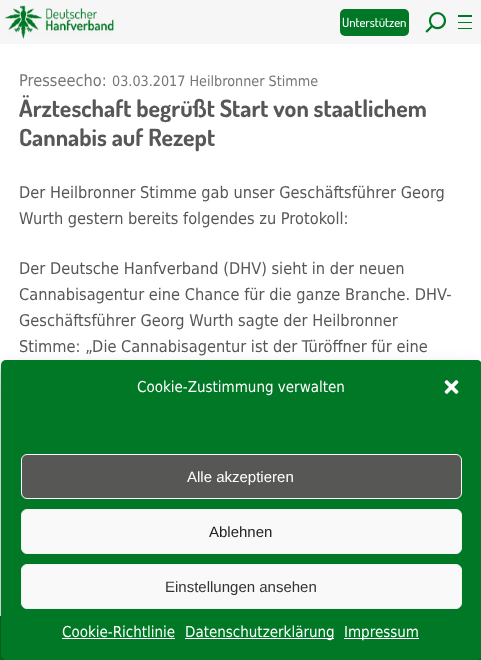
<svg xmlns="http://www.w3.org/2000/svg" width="481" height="660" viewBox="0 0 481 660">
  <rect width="100%" height="100%" fill="rgb(255,255,255)"/>
  <rect x="0" y="0" width="481" height="44" fill="rgb(246,246,246)"/>
  <image x="4" y="5" width="110" height="34" href="pic1.png"/>
  <rect x="340" y="9" width="69" height="27" rx="5" fill="rgb(0,120,37)"/>
  <text x="342" y="27" font-family="Dosis" font-size="12.75" font-weight="500" fill="rgb(255,255,255)">Unterstützen</text>
  <image x="425" y="12" width="22" height="21" href="pic2.png"/>
  <rect x="458" y="15" width="14" height="2" fill="rgb(0,120,37)"/>
  <rect x="458" y="22" width="14" height="1" fill="rgb(0,120,37)"/>
  <rect x="458" y="28" width="14" height="1" fill="rgb(0,120,37)"/>
  <text x="19" y="86" font-family="DejaVu Sans" font-size="16.25" fill="rgb(118,118,117)">Presseecho:</text>
  <text x="112" y="86" font-family="DejaVu Sans" font-size="14.25" fill="rgb(118,118,117)">03.03.2017 Heilbronner Stimme</text>
  <g font-family="Dosis" font-size="23.75" font-weight="bold" fill="rgb(87,87,86)">
    <text>
      <tspan x="19" y="117">Ärzteschaft begrüßt Start von staatlichem</tspan>
      <tspan x="19" y="146">Cannabis auf Rezept</tspan>
    </text>
  </g>
  <g font-family="DejaVu Sans" font-size="16.25" fill="rgb(87,87,86)">
    <text>
      <tspan x="19" y="198">Der Heilbronner Stimme gab unser Geschäftsführer Georg</tspan>
      <tspan x="19" y="224">Wurth gestern bereits folgendes zu Protokoll:</tspan>
    </text>
    <text>
      <tspan x="19" y="274">Der Deutsche Hanfverband (DHV) sieht in der neuen</tspan>
      <tspan x="19" y="300">Cannabisagentur eine Chance für die ganze Branche. DHV-</tspan>
      <tspan x="19" y="326">Geschäftsführer Georg Wurth sagte der Heilbronner</tspan>
      <tspan x="19" y="352">Stimme: „Die Cannabisagentur ist der Türöffner für eine</tspan>
    </text>
  </g>
  <rect x="0" y="616" width="481" height="44" fill="rgb(0,120,37)"/>
  <rect x="1" y="366" width="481" height="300" rx="5" fill="rgba(0,0,0,0.23)" filter="blur(3px)"/>
  <rect x="1" y="370" width="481" height="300" rx="5" fill="rgba(0,0,0,0.19)" filter="blur(10px)"/>
  <rect x="1" y="360" width="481" height="300" rx="5" fill="rgb(0,120,37)"/>
  <text x="137" y="392" font-family="DejaVu Sans" font-size="15" fill="rgb(255,255,255)">Cookie-Zustimmung verwalten</text>
  <image x="444" y="380" width="15" height="14" href="pic3.png"/>
  <rect x="21.5" y="454.5" width="440" height="44" rx="5.5" fill="rgb(87,87,86)" stroke="rgb(255,255,255)"/>
  <text x="187" y="482" font-family="Liberation Sans" font-size="15" fill="rgb(255,255,255)">Alle akzeptieren</text>
  <rect x="21.5" y="509.5" width="440" height="44" rx="5.5" fill="rgb(249,249,249)" stroke="rgb(242,242,242)"/>
  <text x="209" y="537" font-family="Liberation Sans" font-size="15" fill="rgb(34,34,34)">Ablehnen</text>
  <rect x="21.5" y="564.5" width="440" height="44" rx="5.5" fill="rgb(249,249,249)" stroke="rgb(242,242,242)"/>
  <text x="165" y="592" font-family="Liberation Sans" font-size="15" fill="rgb(51,51,51)">Einstellungen ansehen</text>
  <text x="62" y="637" font-family="DejaVu Sans" font-size="15" fill="rgb(255,255,255)">Cookie-Richtlinie</text>
  <rect x="62" y="638" width="113" height="1" fill="rgb(255,255,255)"/>
  <rect x="185" y="638" width="149" height="1" fill="rgb(255,255,255)"/>
  <text x="185" y="637" font-family="DejaVu Sans" font-size="15" fill="rgb(255,255,255)">Datenschutzerklärung</text>
  <rect x="344" y="638" width="75" height="1" fill="rgb(255,255,255)"/>
  <text x="344" y="637" font-family="DejaVu Sans" font-size="15" fill="rgb(255,255,255)">Impressum</text>
</svg>
